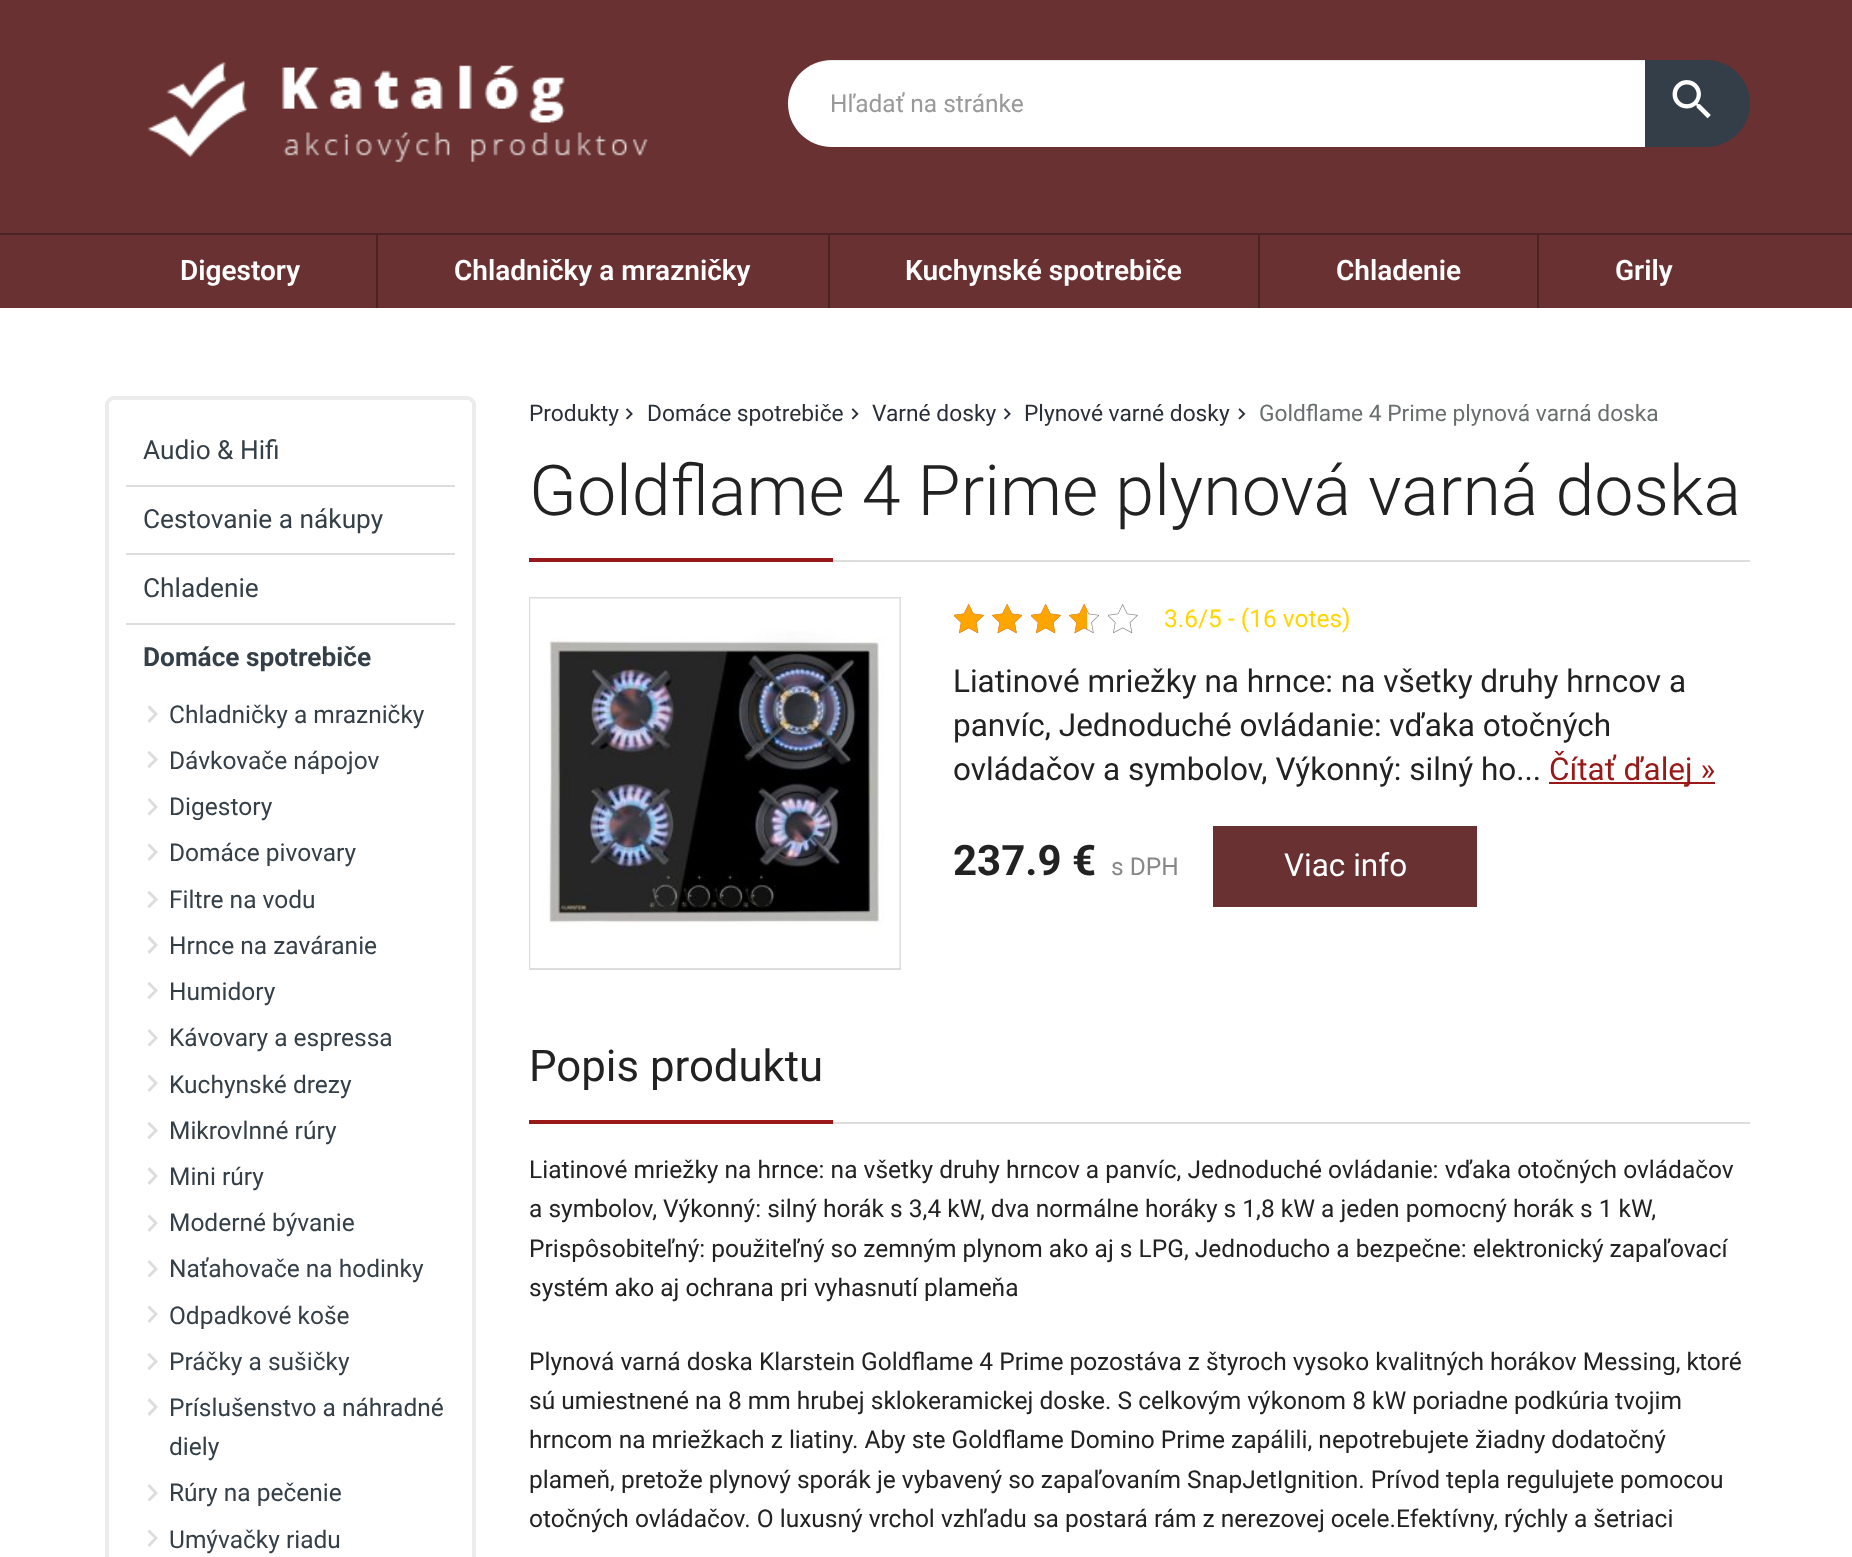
<svg xmlns="http://www.w3.org/2000/svg" width="1852" height="1557" viewBox="0 0 1852 1557">
  <rect width="100%" height="100%" fill="rgb(255,255,255)"/>
  <rect x="0" y="0" width="1852" height="308" fill="rgb(105,49,49)"/>
  <image x="147" y="62" width="501" height="101" href="pic1.png"/>
  <path d="M831.5 60H1647V147H831.5C807.5 147 788 127.5 788 103.5C788 79.5 807.5 60 831.5 60Z" fill="rgb(255,255,255)"/>
  <path d="M831 61H1647V60H832C808 60 788 80 788 104C788 81 807 61 831 61Z" fill="rgba(0,0,0,0.07)"/>
  <text x="830" y="112" font-family="Roboto" font-size="24.5" fill="rgb(153,153,153)">Hľadať na stránke</text>
  <path d="M1645 60H1706.5C1730.5 60 1750 79.5 1750 103.5C1750 127.5 1730.5 147 1706.5 147H1645Z" fill="rgb(52,62,72)"/>
  <image x="1672" y="80" width="39" height="39" href="pic2.png"/>
  <rect x="0" y="233" width="1852" height="2" fill="rgb(75,35,35)"/>
  <text x="180" y="280" font-family="Roboto" font-size="28" font-weight="600" fill="rgb(255,255,255)">Digestory</text>
  <rect x="376" y="235" width="2" height="73" fill="rgb(75,35,35)"/>
  <text x="454" y="280" font-family="Roboto" font-size="28" font-weight="600" fill="rgb(255,255,255)">Chladničky a mrazničky</text>
  <rect x="828" y="235" width="2" height="73" fill="rgb(75,35,35)"/>
  <text x="905" y="280" font-family="Roboto" font-size="28" font-weight="600" fill="rgb(255,255,255)">Kuchynské spotrebiče</text>
  <rect x="1258" y="235" width="2" height="73" fill="rgb(75,35,35)"/>
  <text x="1336" y="280" font-family="Roboto" font-size="28" font-weight="600" fill="rgb(255,255,255)">Chladenie</text>
  <rect x="1537" y="235" width="2" height="73" fill="rgb(75,35,35)"/>
  <text x="1615" y="280" font-family="Roboto" font-size="28" font-weight="600" fill="rgb(255,255,255)">Grily</text>
  <rect x="107" y="398" width="367" height="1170" rx="7" fill="none" stroke="rgb(236,236,236)" stroke-width="4"/>
  <text x="143" y="459" font-family="Roboto" font-size="26.25" fill="rgb(53,63,72)">Audio &amp; Hifi</text>
  <rect x="126" y="485" width="329" height="2" fill="rgb(221,221,221)"/>
  <text x="143" y="528" font-family="Roboto" font-size="26.25" fill="rgb(53,63,72)">Cestovanie a nákupy</text>
  <rect x="126" y="553" width="329" height="2" fill="rgb(221,221,221)"/>
  <text x="143" y="597" font-family="Roboto" font-size="26.25" fill="rgb(53,63,72)">Chladenie</text>
  <rect x="126" y="623" width="329" height="2" fill="rgb(221,221,221)"/>
  <text x="143" y="666" font-family="Roboto" font-size="26.25" font-weight="bold" fill="rgb(53,63,72)">Domáce spotrebiče</text>
  <path d="M147.5 720.5L154 714L147.5 707.5L149.5 705L158 714L149.5 723Z" fill="rgb(221,221,221)"/>
  <text x="169" y="723" font-family="Roboto" font-size="24.5" fill="rgb(53,63,72)">Chladničky a mrazničky</text>
  <image x="147" y="751" width="11" height="17" href="pic3.png"/>
  <text x="169" y="769" font-family="Roboto" font-size="24.5" fill="rgb(53,63,72)">Dávkovače nápojov</text>
  <path d="M147.5 813.5L154 807L147.5 800L149.5 798L158 807L149.5 815.5Z" fill="rgb(221,221,221)"/>
  <text x="169" y="815" font-family="Roboto" font-size="24.5" fill="rgb(53,63,72)">Digestory</text>
  <path d="M147.5 859L154 852L147.5 845.5L149.5 843.5L158 852L149.5 861Z" fill="rgb(221,221,221)"/>
  <text x="169" y="861" font-family="Roboto" font-size="24.5" fill="rgb(53,63,72)">Domáce pivovary</text>
  <image x="147" y="891" width="11" height="17" href="pic3.png"/>
  <text x="169" y="908" font-family="Roboto" font-size="24.5" fill="rgb(53,63,72)">Filtre na vodu</text>
  <path d="M147.5 951.5L154 945L147.5 938.5L149.5 936L158 945L149.5 954Z" fill="rgb(221,221,221)"/>
  <text x="169" y="954" font-family="Roboto" font-size="24.5" fill="rgb(53,63,72)">Hrnce na zaváranie</text>
  <image x="147" y="982" width="11" height="17" href="pic3.png"/>
  <text x="169" y="1000" font-family="Roboto" font-size="24.5" fill="rgb(53,63,72)">Humidory</text>
  <path d="M147.5 1044.5L154 1038L147.5 1031L149.5 1029L158 1038L149.5 1046.5Z" fill="rgb(221,221,221)"/>
  <text x="169" y="1046" font-family="Roboto" font-size="24.5" fill="rgb(53,63,72)">Kávovary a espressa</text>
  <path d="M147.5 1090L154 1083L147.5 1076.5L149.5 1074.5L158 1083L149.5 1092Z" fill="rgb(221,221,221)"/>
  <text x="169" y="1093" font-family="Roboto" font-size="24.5" fill="rgb(53,63,72)">Kuchynské drezy</text>
  <image x="147" y="1122" width="11" height="17" href="pic3.png"/>
  <text x="169" y="1139" font-family="Roboto" font-size="24.5" fill="rgb(53,63,72)">Mikrovlnné rúry</text>
  <path d="M147.5 1182.5L154 1176L147.5 1169.5L149.5 1167L158 1176L149.5 1185Z" fill="rgb(221,221,221)"/>
  <text x="169" y="1185" font-family="Roboto" font-size="24.5" fill="rgb(53,63,72)">Mini rúry</text>
  <path d="M147.5 1230L154 1223L147.5 1216.5L149.5 1214.5L158 1223L149.5 1232Z" fill="rgb(221,221,221)"/>
  <text x="169" y="1231" font-family="Roboto" font-size="24.5" fill="rgb(53,63,72)">Moderné bývanie</text>
  <path d="M147.5 1275.5L154 1269L147.5 1262L149.5 1260L158 1269L149.5 1277.5Z" fill="rgb(221,221,221)"/>
  <text x="169" y="1277" font-family="Roboto" font-size="24.5" fill="rgb(53,63,72)">Naťahovače na hodinky</text>
  <path d="M147.5 1321L154 1314L147.5 1307.5L149.5 1305.5L158 1314L149.5 1323Z" fill="rgb(221,221,221)"/>
  <text x="169" y="1324" font-family="Roboto" font-size="24.5" fill="rgb(53,63,72)">Odpadkové koše</text>
  <image x="147" y="1353" width="11" height="17" href="pic3.png"/>
  <text x="169" y="1370" font-family="Roboto" font-size="24.5" fill="rgb(53,63,72)">Práčky a sušičky</text>
  <path d="M147.5 1413.5L154 1407L147.5 1400.5L149.5 1398L158 1407L149.5 1416Z" fill="rgb(221,221,221)"/>
  <g font-family="Roboto" font-size="24.5" fill="rgb(53,63,72)">
    <text>
      <tspan x="169" y="1416">Príslušenstvo a náhradné</tspan>
      <tspan x="169" y="1455">diely</tspan>
    </text>
  </g>
  <path d="M147.5 1499.5L154 1493L147.5 1486L149.5 1484L158 1493L149.5 1501.5Z" fill="rgb(221,221,221)"/>
  <text x="169" y="1501" font-family="Roboto" font-size="24.5" fill="rgb(53,63,72)">Rúry na pečenie</text>
  <path d="M147.5 1545L154 1538L147.5 1531.5L149.5 1529.5L158 1538L149.5 1547Z" fill="rgb(221,221,221)"/>
  <text x="169" y="1548" font-family="Roboto" font-size="24.5" fill="rgb(53,63,72)">Umývačky riadu</text>
  <text x="529" y="421" font-family="Roboto" font-size="22.75" fill="rgb(41,47,56)">Produkty</text>
  <image x="626" y="408" width="7" height="12" href="pic4.png"/>
  <text x="647" y="421" font-family="Roboto" font-size="22.75" fill="rgb(41,47,56)">Domáce spotrebiče</text>
  <image x="851" y="408" width="8" height="12" href="pic5.png"/>
  <text x="872" y="421" font-family="Roboto" font-size="22.75" fill="rgb(41,47,56)">Varné dosky</text>
  <image x="1004" y="408" width="7" height="12" href="pic4.png"/>
  <text x="1024" y="421" font-family="Roboto" font-size="22.75" fill="rgb(41,47,56)">Plynové varné dosky</text>
  <image x="1238" y="408" width="8" height="12" href="pic6.png"/>
  <text x="1259" y="421" font-family="Roboto" font-size="22.75" fill="rgb(105,110,110)">Goldflame 4 Prime plynová varná doska</text>
  <rect x="833" y="560" width="917" height="2" fill="rgb(221,221,221)"/>
  <text x="529" y="515" font-family="Roboto" font-size="70" font-weight="300" fill="rgb(34,34,34)">Goldflame 4 Prime plynová varná doska</text>
  <rect x="529" y="558" width="304" height="4" fill="rgb(153,24,24)"/>
  <rect x="530" y="598" width="370" height="371" fill="none" stroke="rgb(221,221,221)" stroke-width="2"/>
  <image x="530" y="598" width="370" height="370" href="pic7.png"/>
  <image x="954" y="604" width="30" height="30" href="pic8.png"/>
  <image x="992" y="604" width="30" height="30" href="pic9.png"/>
  <image x="1031" y="604" width="30" height="30" href="pic8.png"/>
  <image x="1069" y="604" width="30" height="30" href="pic9.png"/>
  <image x="1108" y="604" width="30" height="30" href="pic8.png"/>
  <image x="954" y="604" width="30" height="30" href="pic10.png"/>
  <image x="992" y="604" width="30" height="30" href="pic11.png"/>
  <image x="1031" y="604" width="30" height="30" href="pic10.png"/>
  <image x="1069" y="604" width="18" height="30" href="pic12.png"/>
  <text x="1164" y="627" font-family="Roboto" font-size="24.5" fill="rgb(255,214,0)">3.6/5 - (16 votes)</text>
  <g font-family="Roboto" font-size="31.5" fill="rgb(34,34,34)">
    <text>
      <tspan x="953" y="692">Liatinové mriežky na hrnce: na všetky druhy hrncov a</tspan>
      <tspan x="953" y="736">panvíc, Jednoduché ovládanie: vďaka otočných</tspan>
      <tspan x="953" y="780">ovládačov a symbolov, Výkonný: silný ho...</tspan>
    </text>
  </g>
  <rect x="1549" y="782" width="166" height="2" fill="rgb(153,24,24)"/>
  <text x="1549" y="780" font-family="Roboto" font-size="31.5" fill="rgb(153,24,24)">Čítať ďalej »</text>
  <text x="953" y="875" font-family="Roboto" font-size="42" font-weight="bold" fill="rgb(34,34,34)">237.9 €</text>
  <text x="1111" y="875" font-family="Roboto" font-size="24.5" fill="rgb(136,136,136)">s DPH</text>
  <rect x="1213" y="826" width="264" height="81" fill="rgb(105,49,49)"/>
  <text x="1284" y="876" font-family="Roboto" font-size="31.5" fill="rgb(255,255,255)">Viac info</text>
  <rect x="833" y="1122" width="917" height="2" fill="rgb(221,221,221)"/>
  <text x="529" y="1081" font-family="Roboto" font-size="43.75" fill="rgb(34,34,34)">Popis produktu</text>
  <rect x="529" y="1120" width="304" height="4" fill="rgb(153,24,24)"/>
  <g font-family="Roboto" font-size="24.5" fill="rgb(34,34,34)">
    <text>
      <tspan x="529" y="1178">Liatinové mriežky na hrnce: na všetky druhy hrncov a panvíc, Jednoduché ovládanie: vďaka otočných ovládačov</tspan>
      <tspan x="529" y="1217">a symbolov, Výkonný: silný horák s 3,4 kW, dva normálne horáky s 1,8 kW a jeden pomocný horák s 1 kW,</tspan>
      <tspan x="529" y="1257">Prispôsobiteľný: použiteľný so zemným plynom ako aj s LPG, Jednoducho a bezpečne: elektronický zapaľovací</tspan>
      <tspan x="529" y="1296">systém ako aj ochrana pri vyhasnutí plameňa</tspan>
    </text>
    <text>
      <tspan x="529" y="1370">Plynová varná doska Klarstein Goldflame 4 Prime pozostáva z štyroch vysoko kvalitných horákov Messing, ktoré</tspan>
      <tspan x="529" y="1409">sú umiestnené na 8 mm hrubej sklokeramickej doske. S celkovým výkonom 8 kW poriadne podkúria tvojim</tspan>
      <tspan x="529" y="1448">hrncom na mriežkach z liatiny. Aby ste Goldflame Domino Prime zapálili, nepotrebujete žiadny dodatočný</tspan>
      <tspan x="529" y="1488">plameň, pretože plynový sporák je vybavený so zapaľovaním SnapJetIgnition. Prívod tepla regulujete pomocou</tspan>
      <tspan x="529" y="1527">otočných ovládačov. O luxusný vrchol vzhľadu sa postará rám z nerezovej ocele.Efektívny, rýchly a šetriaci</tspan>
    </text>
  </g>
</svg>
